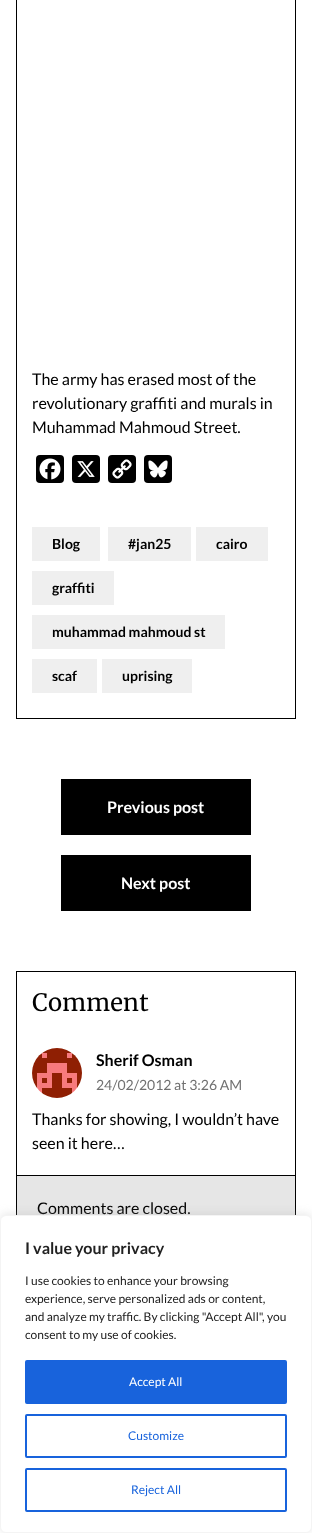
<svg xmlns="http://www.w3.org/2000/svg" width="312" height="1533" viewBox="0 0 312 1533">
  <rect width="100%" height="100%" fill="rgb(255,255,255)"/>
  <rect x="16.5" y="-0.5" width="279" height="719" fill="none" stroke="rgb(0,0,0)"/>
  <g font-family="Lato" font-size="16" fill="rgb(0,0,0)">
    <text>
      <tspan x="32" y="385">The army has erased most of the</tspan>
      <tspan x="32" y="409">revolutionary graffiti and murals in</tspan>
      <tspan x="32" y="433">Muhammad Mahmoud Street.</tspan>
    </text>
  </g>
  <rect x="36" y="455" width="28" height="28" rx="4" fill="rgb(0,0,0)"/>
  <image x="39" y="458" width="22" height="22" href="pic1.png"/>
  <rect x="72" y="455" width="28" height="28" rx="4" fill="rgb(0,0,0)"/>
  <image x="77" y="461" width="18" height="16" href="pic2.png"/>
  <rect x="108" y="455" width="28" height="28" rx="4" fill="rgb(0,0,0)"/>
  <image x="112" y="459" width="20" height="20" href="pic3.png"/>
  <rect x="144" y="455" width="28" height="28" rx="4" fill="rgb(0,0,0)"/>
  <image x="148" y="460" width="20" height="18" href="pic4.png"/>
  <rect x="32" y="527" width="68" height="34" fill="rgb(239,239,239)"/>
  <text x="52" y="549" font-family="Lato" font-size="14" font-weight="bold" fill="rgb(0,0,0)">Blog</text>
  <rect x="108" y="527" width="83" height="34" fill="rgb(239,239,239)"/>
  <text x="128" y="549" font-family="Lato" font-size="14" font-weight="bold" fill="rgb(0,0,0)">#jan25</text>
  <rect x="196" y="527" width="72" height="34" fill="rgb(239,239,239)"/>
  <text x="216" y="549" font-family="Lato" font-size="14" font-weight="bold" fill="rgb(0,0,0)">cairo</text>
  <rect x="32" y="571" width="82" height="34" fill="rgb(239,239,239)"/>
  <text x="52" y="593" font-family="Lato" font-size="14" font-weight="bold" fill="rgb(0,0,0)">graffiti</text>
  <rect x="32" y="615" width="193" height="34" fill="rgb(239,239,239)"/>
  <text x="52" y="637" font-family="Lato" font-size="14" font-weight="bold" fill="rgb(0,0,0)">muhammad mahmoud st</text>
  <rect x="32" y="659" width="65" height="34" fill="rgb(239,239,239)"/>
  <text x="52" y="681" font-family="Lato" font-size="14" font-weight="bold" fill="rgb(0,0,0)">scaf</text>
  <rect x="102" y="659" width="90" height="34" fill="rgb(239,239,239)"/>
  <text x="122" y="681" font-family="Lato" font-size="14" font-weight="bold" fill="rgb(0,0,0)">uprising</text>
  <rect x="61" y="779" width="190" height="56" fill="rgb(0,0,0)"/>
  <text x="107" y="813" font-family="Lato" font-size="16" font-weight="bold" fill="rgb(255,255,255)">Previous post</text>
  <rect x="61" y="855" width="190" height="56" fill="rgb(0,0,0)"/>
  <text x="121" y="889" font-family="Lato" font-size="16" font-weight="bold" fill="rgb(255,255,255)">Next post</text>
  <rect x="16.5" y="971.5" width="279" height="269" fill="none" stroke="rgb(0,0,0)"/>
  <text x="32" y="1011" font-family="Merriweather" font-size="24" fill="rgb(0,0,0)">Comment</text>
  <rect x="17" y="1175" width="278" height="1" fill="rgb(0,0,0)"/>
  <image x="32" y="1048" width="50" height="50" href="pic5.png"/>
  <text x="96" y="1066" font-family="Lato" font-size="16" font-weight="bold" fill="rgb(0,0,0)">Sherif Osman</text>
  <text x="96" y="1090" font-family="Lato" font-size="14" fill="rgb(113,113,113)">24/02/2012 at 3:26 AM</text>
  <g font-family="Lato" font-size="16" fill="rgb(0,0,0)">
    <text>
      <tspan x="32" y="1125">Thanks for showing, I wouldn’t have</tspan>
      <tspan x="32" y="1149">seen it here…</tspan>
    </text>
  </g>
  <rect x="17" y="1176" width="278" height="39" fill="rgb(230,230,230)"/>
  <text x="37" y="1214" font-family="Lato" font-size="16" fill="rgb(0,0,0)">Comments are closed.</text>
  <rect x="0" y="1214" width="312" height="318" rx="6" fill="rgba(172,171,171,0.3)" filter="blur(5px)"/>
  <rect x="0.5" y="1215.5" width="311" height="317" rx="5.5" fill="rgb(255,255,255)" stroke="rgb(244,244,244)"/>
  <text x="25" y="1254" font-family="Lato" font-size="16" font-weight="bold" fill="rgb(33,33,33)">I value your privacy</text>
  <g font-family="Lato" font-size="12" fill="rgb(33,33,33)">
    <text>
      <tspan x="25" y="1285">I use cookies to enhance your browsing</tspan>
      <tspan x="25" y="1303">experience, serve personalized ads or content,</tspan>
      <tspan x="25" y="1321">and analyze my traffic. By clicking "Accept All", you</tspan>
      <tspan x="25" y="1339">consent to my use of cookies.</tspan>
    </text>
  </g>
  <rect x="26" y="1361" width="260" height="42" rx="1" fill="rgb(24,99,220)" stroke="rgb(24,99,220)" stroke-width="2"/>
  <text x="129" y="1386" font-family="Lato" font-size="12" fill="rgb(255,255,255)">Accept All</text>
  <rect x="26" y="1415" width="260" height="42" rx="1" fill="none" stroke="rgb(24,99,220)" stroke-width="2"/>
  <text x="128" y="1440" font-family="Lato" font-size="12" fill="rgb(24,99,220)">Customize</text>
  <rect x="26" y="1469" width="260" height="42" rx="1" fill="none" stroke="rgb(24,99,220)" stroke-width="2"/>
  <text x="131" y="1494" font-family="Lato" font-size="12" fill="rgb(24,99,220)">Reject All</text>
</svg>
